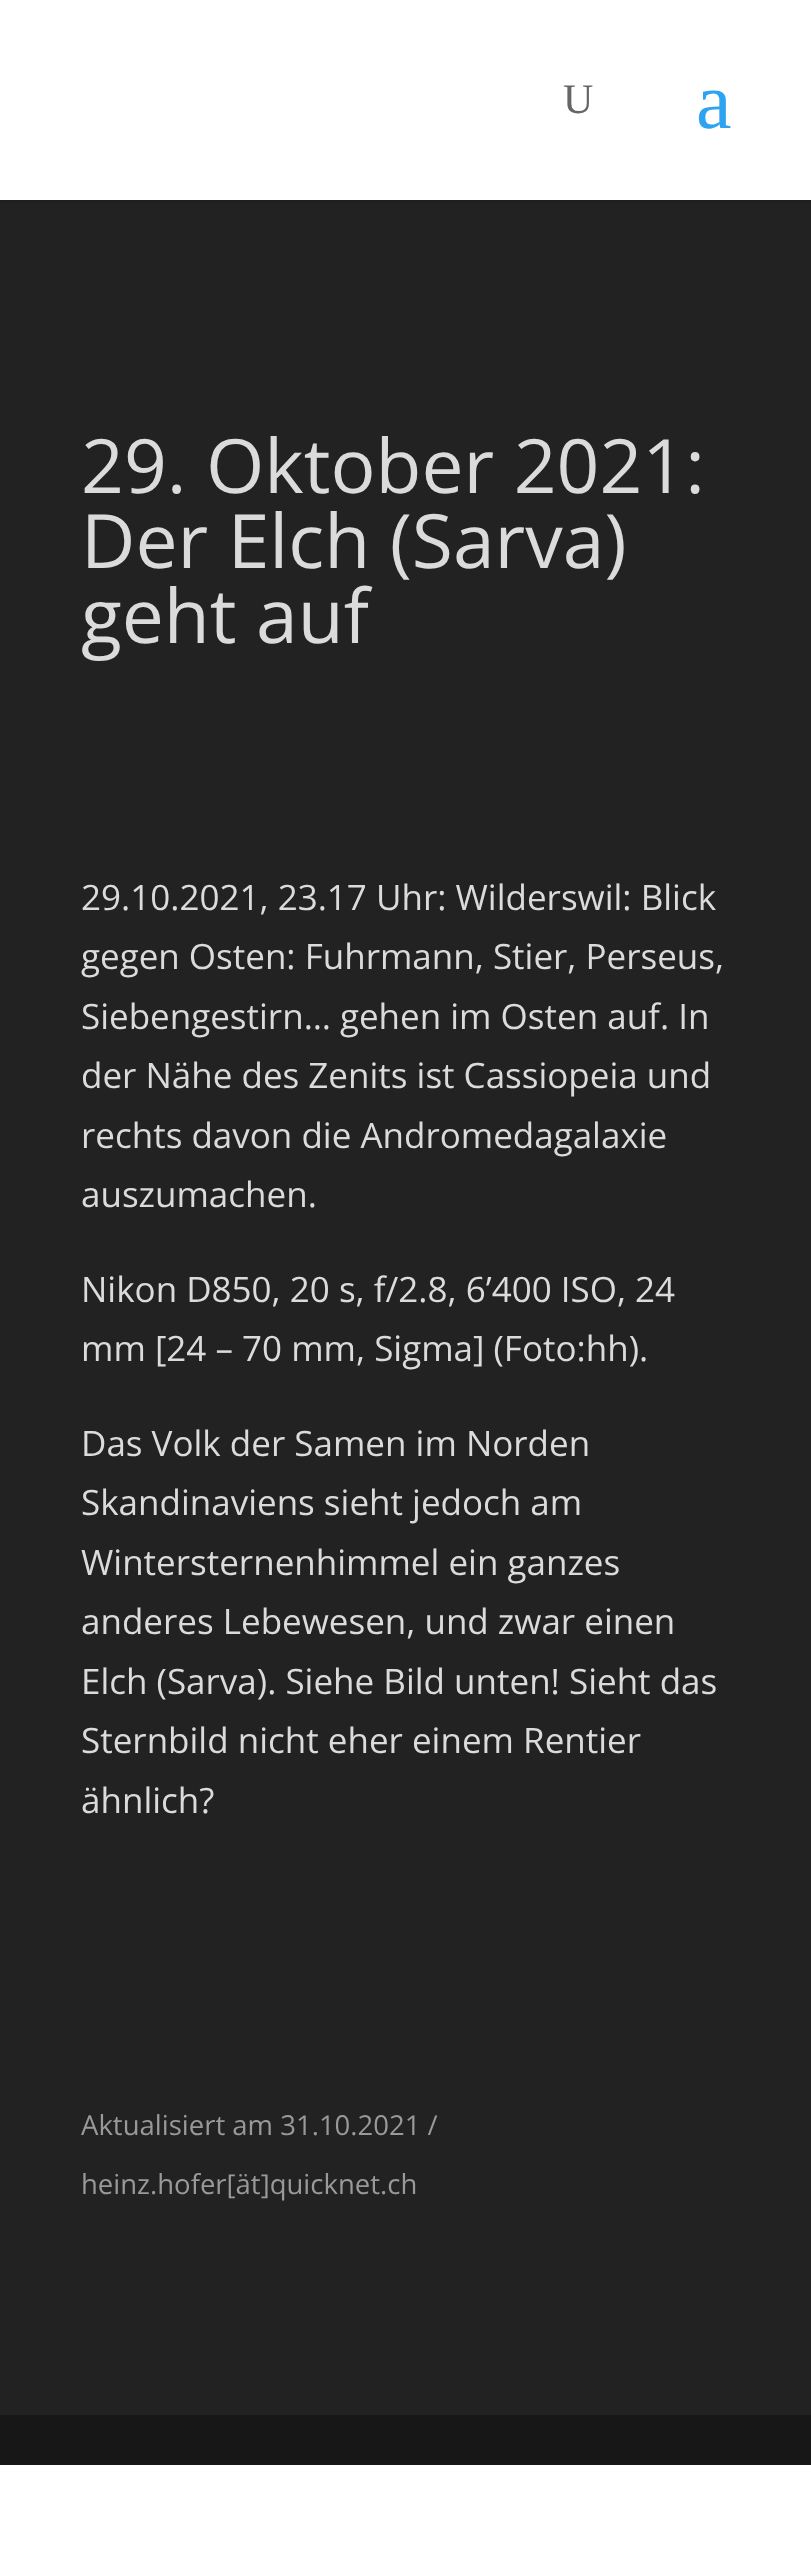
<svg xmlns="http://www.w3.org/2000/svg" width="811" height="2575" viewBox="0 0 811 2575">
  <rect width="100%" height="100%" fill="rgb(255,255,255)"/>
  <path d="M0 200V203H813V3H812V200Z" fill="rgb(31,31,31)"/>
  <text x="563" y="113" font-family="Liberation Serif" font-size="42" fill="rgb(102,102,102)">U</text>
  <text x="696" y="128" font-family="Liberation Serif" font-size="80" fill="rgb(46,163,242)">a</text>
  <rect x="0" y="203" width="811" height="2212" fill="rgb(34,34,34)"/>
  <g font-family="Open Sans" font-size="75" fill="rgb(219,219,219)">
    <text>
      <tspan x="81" y="493">29. Oktober 2021:</tspan>
      <tspan x="81" y="568">Der Elch (Sarva)</tspan>
      <tspan x="81" y="643">geht auf</tspan>
    </text>
  </g>
  <g font-family="Open Sans" font-size="35" fill="rgb(219,219,219)">
    <text>
      <tspan x="81" y="910">29.10.2021, 23.17 Uhr: Wilderswil: Blick</tspan>
      <tspan x="81" y="969">gegen Osten: Fuhrmann, Stier, Perseus,</tspan>
      <tspan x="81" y="1029">Siebengestirn… gehen im Osten auf. In</tspan>
      <tspan x="81" y="1088">der Nähe des Zenits ist Cassiopeia und</tspan>
      <tspan x="81" y="1148">rechts davon die Andromedagalaxie</tspan>
      <tspan x="81" y="1207">auszumachen.</tspan>
    </text>
    <text>
      <tspan x="81" y="1302">Nikon D850, 20 s, f/2.8, 6’400 ISO, 24</tspan>
      <tspan x="81" y="1361">mm [24 – 70 mm, Sigma] (Foto:hh).</tspan>
    </text>
    <text>
      <tspan x="81" y="1456">Das Volk der Samen im Norden</tspan>
      <tspan x="81" y="1515">Skandinaviens sieht jedoch am</tspan>
      <tspan x="81" y="1575">Wintersternenhimmel ein ganzes</tspan>
      <tspan x="81" y="1634">anderes Lebewesen, und zwar einen</tspan>
      <tspan x="81" y="1694">Elch (Sarva). Siehe Bild unten! Sieht das</tspan>
      <tspan x="81" y="1753">Sternbild nicht eher einem Rentier</tspan>
      <tspan x="81" y="1813">ähnlich?</tspan>
    </text>
  </g>
  <g font-family="Open Sans" font-size="27.5" fill="rgb(153,153,153)">
    <text x="81" y="2135">Aktualisiert am 31.10.2021 /</text>
    <text x="81" y="2194">heinz.hofer[ät]quicknet.ch</text>
  </g>
  <rect x="0" y="2415" width="811" height="50" fill="rgb(23,23,23)"/>
</svg>
